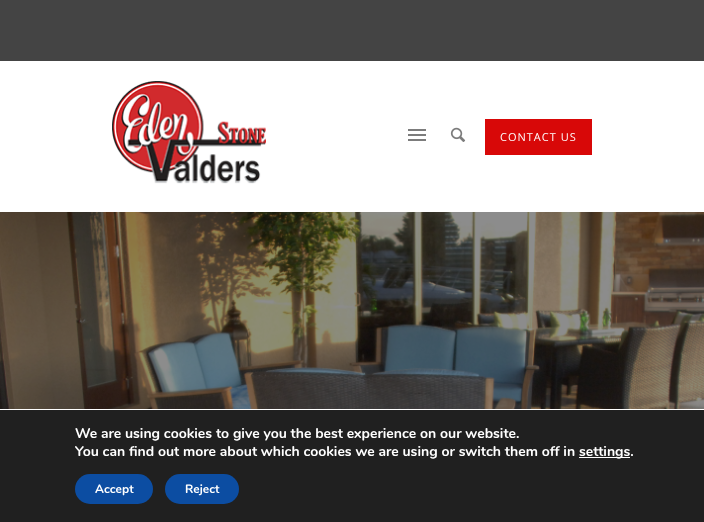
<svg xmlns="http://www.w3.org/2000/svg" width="704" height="522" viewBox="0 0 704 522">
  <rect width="100%" height="100%" fill="rgb(255,255,255)"/>
  <rect x="0" y="0" width="704" height="61" fill="rgb(68,68,68)"/>
  <image x="112" y="81" width="154" height="103" href="pic1.png"/>
  <rect x="408" y="134" width="18" height="2" fill="rgb(124,124,124)"/>
  <rect x="408" y="129" width="18" height="2" fill="rgb(124,124,124)"/>
  <rect x="408" y="139" width="18" height="2" fill="rgb(124,124,124)"/>
  <image x="450" y="127" width="16" height="15" href="pic2.png"/>
  <rect x="485" y="119" width="107" height="36" fill="rgb(216,8,8)"/>
  <text x="500" y="141" font-family="Open Sans" font-size="11" letter-spacing="1" fill="rgb(255,255,255)">CONTACT US</text>
  <image x="0" y="212" width="704" height="197" href="pic3.png"/>
  <rect x="0" y="410" width="704" height="112" fill="rgb(32,32,32)"/>
  <g font-family="Nunito" font-size="14" font-weight="bold" fill="rgb(255,255,255)">
    <text>
      <tspan x="75" y="438">We are using cookies to give you the best experience on our website.</tspan>
      <tspan x="75" y="456">You can find out more about which cookies we are using or switch them off in</tspan>
    </text>
  </g>
  <rect x="579" y="457" width="51" height="1" fill="rgb(255,255,255)"/>
  <text x="579" y="456" font-family="Nunito" font-size="14" font-weight="bold" fill="rgb(255,255,255)">settings.</text>
  <rect x="75" y="474" width="78" height="30" rx="15" fill="rgb(12,77,162)"/>
  <text x="95" y="493" font-family="Nunito" font-size="12" font-weight="bold" fill="rgb(255,255,255)">Accept</text>
  <rect x="165" y="474" width="74" height="30" rx="15" fill="rgb(12,77,162)"/>
  <text x="185" y="493" font-family="Nunito" font-size="12" font-weight="bold" fill="rgb(255,255,255)">Reject</text>
</svg>
